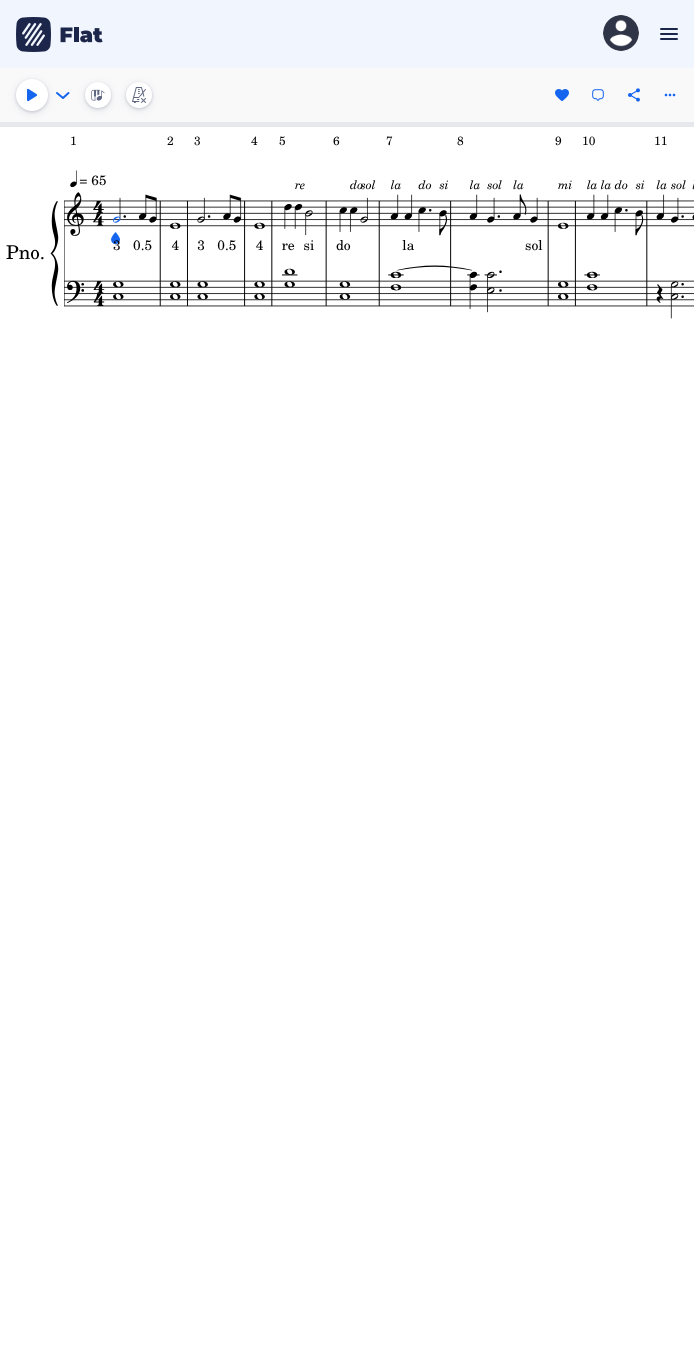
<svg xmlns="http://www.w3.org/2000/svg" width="694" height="1362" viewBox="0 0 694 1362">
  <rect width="100%" height="100%" fill="rgb(255,255,255)"/>
  <rect x="0" y="0" width="694" height="68" fill="rgb(241,246,254)"/>
  <image x="16" y="17" width="87" height="35" href="pic1.png"/>
  <circle cx="621" cy="33" r="18" fill="rgb(255,255,255)"/>
  <image x="603" y="15" width="36" height="36" href="pic2.png"/>
  <rect x="660" y="28" width="18" height="2" rx="1" fill="rgb(28,38,74)"/>
  <rect x="660" y="33" width="18" height="2" rx="1" fill="rgb(28,38,74)"/>
  <rect x="660" y="38" width="18" height="2" rx="1" fill="rgb(28,38,74)"/>
  <rect x="0" y="68" width="694" height="54" fill="rgb(249,249,250)"/>
  <rect x="16" y="80" width="32" height="32" rx="16" fill="rgba(40,48,79,0.2)" filter="blur(1.5px)"/>
  <rect x="16" y="81" width="32" height="32" rx="16" fill="rgba(40,48,79,0.1)" filter="blur(4px)"/>
  <circle cx="32" cy="95" r="16" fill="rgb(255,255,255)"/>
  <image x="27" y="88" width="11" height="14" href="pic3.png"/>
  <path d="M57 93L63 98L68.5 93" fill="none" stroke="rgb(21,101,239)" stroke-width="2" stroke-linecap="round" stroke-linejoin="round"/>
  <rect x="85" y="83" width="26" height="26" rx="13" fill="rgba(40,48,79,0.2)" filter="blur(1.5px)"/>
  <rect x="85" y="84" width="26" height="26" rx="13" fill="rgba(40,48,79,0.1)" filter="blur(4px)"/>
  <circle cx="98" cy="95" r="13" fill="rgb(255,255,255)"/>
  <image x="91" y="89" width="14" height="12" href="pic4.png"/>
  <rect x="126" y="83" width="26" height="26" rx="13" fill="rgba(40,48,79,0.2)" filter="blur(1.5px)"/>
  <rect x="126" y="84" width="26" height="26" rx="13" fill="rgba(40,48,79,0.1)" filter="blur(4px)"/>
  <circle cx="139" cy="95" r="13" fill="rgb(255,255,255)"/>
  <image x="132" y="87" width="14" height="16" href="pic5.png"/>
  <image x="555" y="89" width="14" height="12" href="pic6.png"/>
  <image x="592" y="89" width="12" height="12" href="pic7.png"/>
  <image x="628" y="88" width="12" height="14" href="pic8.png"/>
  <image x="664" y="93" width="12" height="4" href="pic9.png"/>
  <rect x="0" y="122" width="694" height="5" fill="rgb(231,232,236)"/>
  <g font-family="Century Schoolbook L" font-size="12" fill="rgb(0,0,0)">
    <text x="70" y="145">1</text>
    <text x="167" y="145">2</text>
    <text x="194" y="145">3</text>
    <text x="251" y="145">4</text>
    <text x="279" y="145">5</text>
    <text x="333" y="145">6</text>
    <text x="386" y="145">7</text>
    <text x="457" y="145">8</text>
    <text x="555" y="145">9</text>
    <text x="582" y="145">10</text>
    <text x="654" y="145">11</text>
  </g>
  <image x="64" y="170" width="630" height="149" href="pic10.png"/>
  <image x="50" y="201" width="9" height="105" href="pic11.png"/>
  <text x="6" y="259" font-family="Century Schoolbook L" font-size="19" fill="rgb(0,0,0)">Pno.</text>
</svg>
